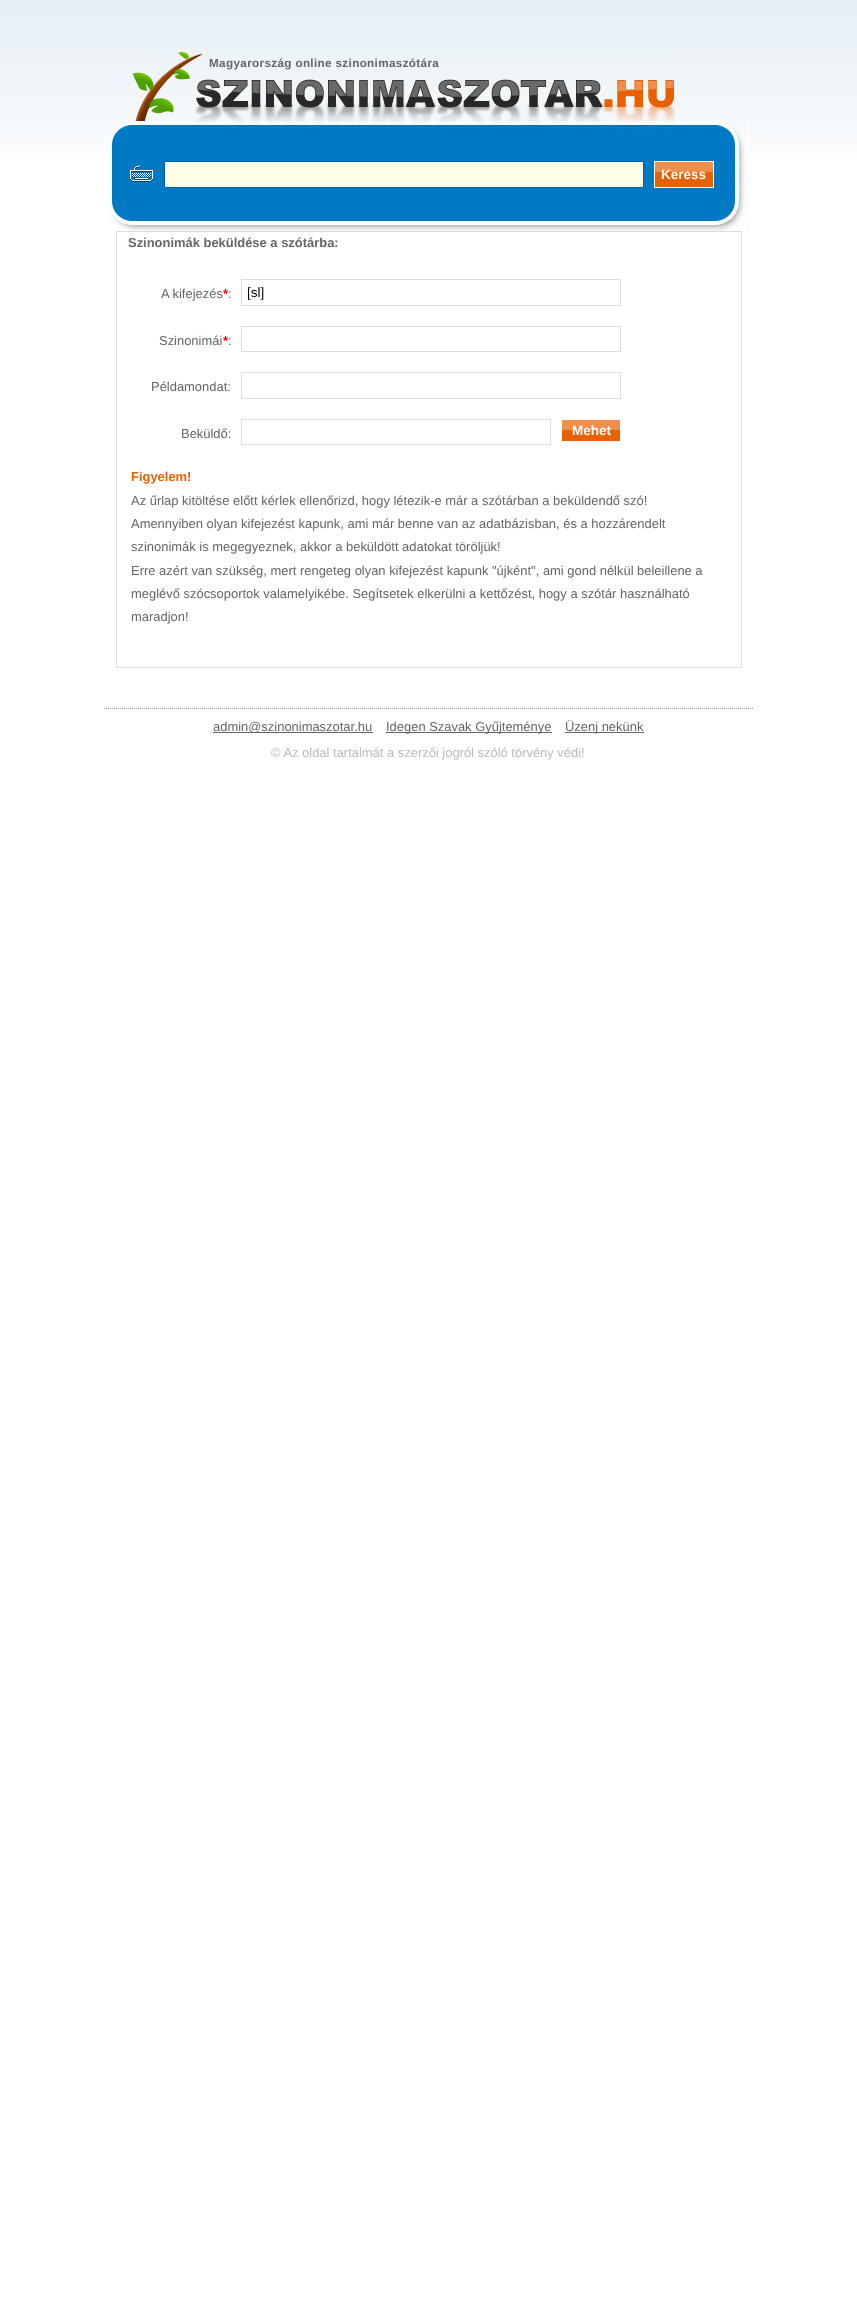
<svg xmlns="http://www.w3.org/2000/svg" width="857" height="2298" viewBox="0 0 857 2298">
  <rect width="100%" height="100%" fill="rgb(255,255,255)"/>
  <image x="0" y="0" width="857" height="158" href="pic1.png"/>
  <image x="133" y="52" width="543" height="69" href="pic2.png"/>
  <text x="209" y="67" font-family="Liberation Sans" font-size="11.7" font-weight="bold" letter-spacing="0.35" fill="rgb(102,102,102)">Magyarország online szinonimaszótára</text>
  <image x="109" y="121" width="640" height="110" href="pic3.png"/>
  <image x="109" y="121" width="635" height="26" href="pic4.png"/>
  <image x="130" y="165" width="23" height="17" href="pic5.png"/>
  <rect x="164.5" y="161.5" width="479" height="26" fill="rgb(254,255,229)" stroke="rgb(0,97,158)"/>
  <rect x="655" y="172" width="58" height="15" fill="rgb(234,95,0)"/>
  <rect x="655" y="162" width="58" height="10" fill="rgb(240,143,77)"/>
  <rect x="654.5" y="161.5" width="59" height="26" fill="none" stroke="rgb(255,255,255)"/>
  <text x="661" y="179" font-family="Liberation Sans" font-size="13.5" font-weight="bold" fill="rgb(255,255,255)">Keress</text>
  <image x="109" y="201" width="637" height="30" href="pic6.png"/>
  <rect x="116.5" y="231.5" width="625" height="436" fill="none" stroke="rgb(221,221,221)"/>
  <text x="128" y="247" font-family="Liberation Sans" font-size="12.95" font-weight="bold" fill="rgb(102,102,102)">Szinonimák beküldése a szótárba:</text>
  <text x="161" y="298" font-family="Liberation Sans" font-size="12.95" fill="rgb(102,102,102)">A kifejezés</text>
  <text x="223" y="298" font-family="Liberation Sans" font-size="12.95" font-weight="bold" fill="rgb(255,0,0)">*</text>
  <text x="228" y="298" font-family="Liberation Sans" font-size="12.95" fill="rgb(102,102,102)">:</text>
  <rect x="241.5" y="279.5" width="379" height="26" fill="none" stroke="rgb(221,221,221)"/>
  <text x="247" y="297" font-family="Liberation Sans" font-size="13.5" fill="rgb(0,0,0)">[sl]</text>
  <text x="159" y="345" font-family="Liberation Sans" font-size="12.95" fill="rgb(102,102,102)">Szinonimái</text>
  <text x="223" y="345" font-family="Liberation Sans" font-size="12.95" font-weight="bold" fill="rgb(255,0,0)">*</text>
  <text x="228" y="345" font-family="Liberation Sans" font-size="12.95" fill="rgb(102,102,102)">:</text>
  <rect x="241.5" y="326.5" width="379" height="25" fill="none" stroke="rgb(221,221,221)"/>
  <text x="151" y="391" font-family="Liberation Sans" font-size="12.95" fill="rgb(102,102,102)">Példamondat:</text>
  <rect x="241.5" y="372.5" width="379" height="26" fill="none" stroke="rgb(221,221,221)"/>
  <text x="181" y="438" font-family="Liberation Sans" font-size="12.95" fill="rgb(102,102,102)">Beküldő:</text>
  <rect x="241.5" y="419.5" width="309" height="25" fill="none" stroke="rgb(221,221,221)"/>
  <rect x="562" y="430" width="58" height="11" fill="rgb(234,95,0)"/>
  <rect x="562" y="420" width="58" height="10" fill="rgb(240,143,77)"/>
  <text x="572" y="435" font-family="Liberation Sans" font-size="13.5" font-weight="bold" fill="rgb(255,255,255)">Mehet</text>
  <text x="131" y="481" font-family="Liberation Sans" font-size="12.95" font-weight="bold" fill="rgb(234,95,0)">Figyelem!</text>
  <g font-family="Liberation Sans" font-size="12.95" fill="rgb(102,102,102)">
    <text>
      <tspan x="131" y="505">Az űrlap kitöltése előtt kérlek ellenőrizd, hogy létezik-e már a szótárban a beküldendő szó!</tspan>
      <tspan x="131" y="528">Amennyiben olyan kifejezést kapunk, ami már benne van az adatbázisban, és a hozzárendelt</tspan>
      <tspan x="131" y="551">szinonimák is megegyeznek, akkor a beküldött adatokat töröljük!</tspan>
      <tspan x="131" y="575">Erre azért van szükség, mert rengeteg olyan kifejezést kapunk "újként", ami gond nélkül beleillene a</tspan>
      <tspan x="131" y="598">meglévő szócsoportok valamelyikébe. Segítsetek elkerülni a kettőzést, hogy a szótár használható</tspan>
      <tspan x="131" y="621">maradjon!</tspan>
    </text>
  </g>
  <path d="M104 708.5H754" fill="none" stroke="rgb(153,153,153)" stroke-dasharray="1 1"/>
  <rect x="213" y="732" width="160" height="1" fill="rgb(102,102,102)"/>
  <text x="213" y="731" font-family="Liberation Sans" font-size="12.95" fill="rgb(102,102,102)">admin@szinonimaszotar.hu</text>
  <rect x="386" y="732" width="166" height="1" fill="rgb(102,102,102)"/>
  <text x="386" y="731" font-family="Liberation Sans" font-size="12.95" fill="rgb(102,102,102)">Idegen Szavak Gyűjteménye</text>
  <rect x="565" y="732" width="79" height="1" fill="rgb(102,102,102)"/>
  <text x="565" y="731" font-family="Liberation Sans" font-size="12.95" fill="rgb(102,102,102)">Üzenj nekünk</text>
  <text x="271" y="757" font-family="Liberation Sans" font-size="12.95" fill="rgb(186,186,186)">© Az oldal tartalmát a szerzői jogról szóló törvény védi!</text>
</svg>
